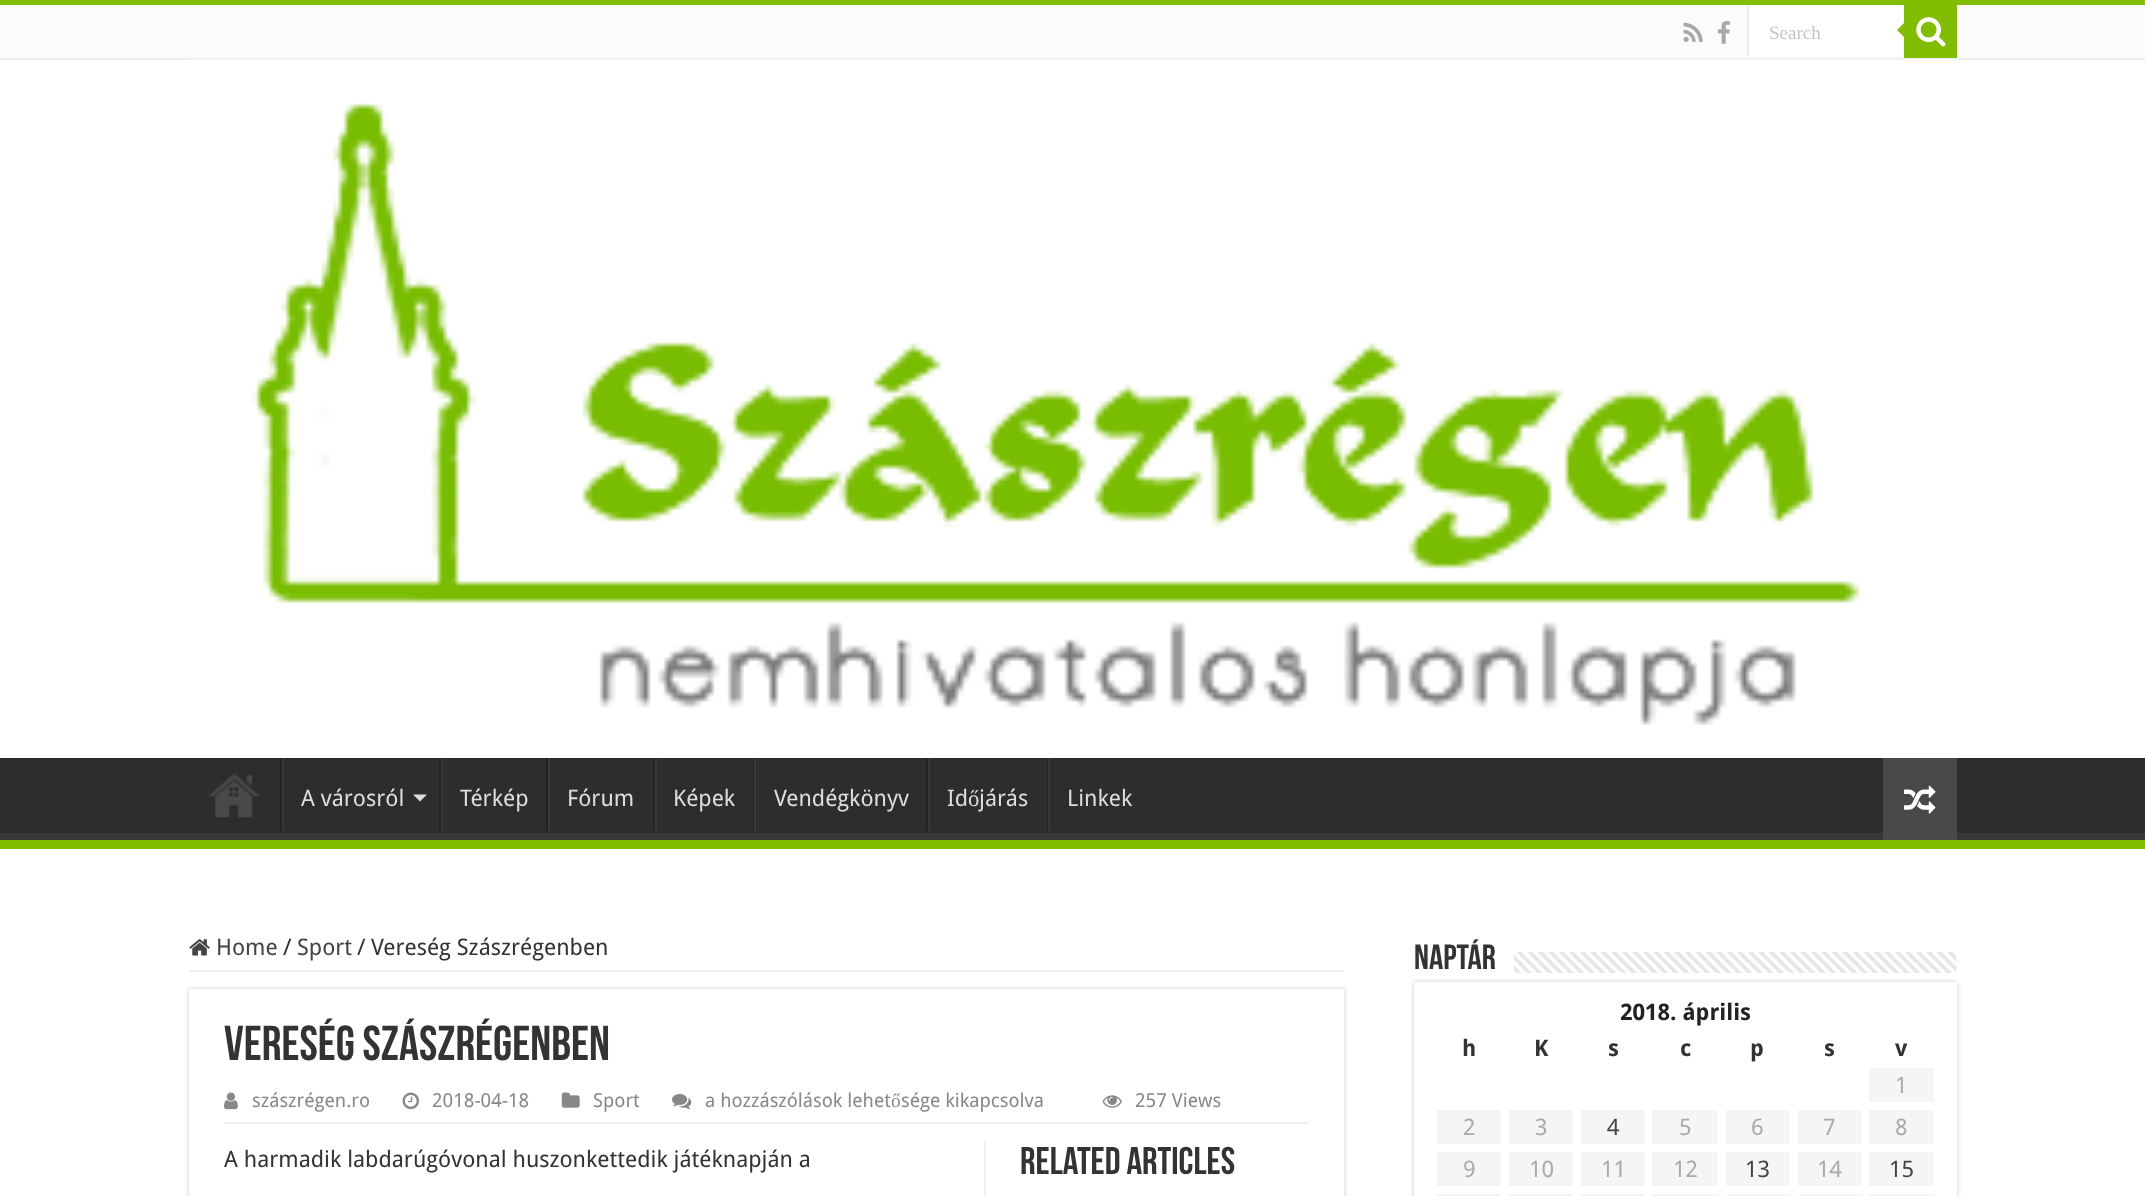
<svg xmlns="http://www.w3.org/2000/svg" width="2145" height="1196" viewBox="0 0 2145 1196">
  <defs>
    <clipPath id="clip1"><rect x="0" y="758" width="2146" height="82"/></clipPath>
    <clipPath id="clip2"><path d="M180 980H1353V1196H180ZM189 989H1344V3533H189Z" clip-rule="evenodd"/></clipPath>
  </defs>
  <rect width="100%" height="100%" fill="rgb(255,255,255)"/>
  <rect x="0" y="0" width="2145" height="5" fill="rgb(129,189,0)"/>
  <rect x="0" y="5" width="2145" height="53" fill="rgb(251,251,251)"/>
  <rect x="0" y="58" width="2145" height="2" fill="rgb(236,236,236)"/>
  <image x="1683" y="22" width="20" height="20" href="pic1.png"/>
  <image x="1718" y="21" width="12" height="23" href="pic2.png"/>
  <rect x="1749" y="5" width="155" height="51" fill="rgb(255,255,255)"/>
  <rect x="1747" y="5" width="2" height="51" fill="rgb(236,236,236)"/>
  <text x="1769" y="39" font-family="Liberation Serif" font-size="19" fill="rgb(197,197,197)">Search</text>
  <rect x="1904" y="5" width="53" height="53" fill="rgb(129,189,0)"/>
  <image x="1916" y="17" width="30" height="30" href="pic3.png"/>
  <path d="M1904 23V37L1897 30Z" fill="rgb(129,189,0)"/>
  <image x="189" y="59" width="1768" height="667" href="pic4.png"/>
  <rect x="0" y="758" width="2145" height="75" fill="rgb(45,45,45)"/>
  <g clip-path="url(#clip1)">
    <path d="M-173 584H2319V1013H-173ZM-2 747H2144C2145 747 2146 748 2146 749V831C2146 832 2145 833 2144 833H-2C-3 833-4 832-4 831V749C-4 748-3 747-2 747Z" fill="rgb(57,57,57)" fill-rule="evenodd"/>
  </g>
  <rect x="0" y="840" width="2145" height="9" fill="rgb(129,189,0)"/>
  <image x="208" y="773" width="52" height="45" href="pic5.png"/>
  <rect x="280" y="758" width="2" height="73" fill="rgb(34,34,34)"/>
  <rect x="282" y="758" width="2" height="73" fill="rgb(56,56,56)"/>
  <text x="301" y="806" font-family="Droid Sans" font-size="22.75" fill="rgb(221,221,221)">A városról</text>
  <path d="M413 794.5H427L420 801.5Z" fill="rgb(221,221,221)"/>
  <rect x="439" y="758" width="2" height="73" fill="rgb(34,34,34)"/>
  <rect x="441" y="758" width="2" height="73" fill="rgb(56,56,56)"/>
  <text x="460" y="806" font-family="Droid Sans" font-size="22.75" fill="rgb(221,221,221)">Térkép</text>
  <rect x="546" y="758" width="2" height="73" fill="rgb(34,34,34)"/>
  <rect x="548" y="758" width="2" height="73" fill="rgb(56,56,56)"/>
  <text x="567" y="806" font-family="Droid Sans" font-size="22.75" fill="rgb(221,221,221)">Fórum</text>
  <rect x="653" y="758" width="2" height="73" fill="rgb(34,34,34)"/>
  <rect x="655" y="758" width="2" height="73" fill="rgb(56,56,56)"/>
  <text x="673" y="806" font-family="Droid Sans" font-size="22.75" fill="rgb(221,221,221)">Képek</text>
  <rect x="753" y="758" width="1" height="73" fill="rgb(34,34,34)"/>
  <rect x="754" y="758" width="2" height="73" fill="rgb(56,56,56)"/>
  <text x="774" y="806" font-family="Droid Sans" font-size="22.75" fill="rgb(221,221,221)">Vendégkönyv</text>
  <rect x="926" y="758" width="2" height="73" fill="rgb(34,34,34)"/>
  <rect x="928" y="758" width="2" height="73" fill="rgb(56,56,56)"/>
  <text x="947" y="806" font-family="Droid Sans" font-size="22.75" fill="rgb(221,221,221)">Id</text>
  <text x="968" y="806" font-family="Liberation Serif" font-size="22.75" fill="rgb(221,221,221)">ő</text>
  <text x="979" y="806" font-family="Droid Sans" font-size="22.75" fill="rgb(221,221,221)">járás</text>
  <rect x="1047" y="758" width="1" height="73" fill="rgb(34,34,34)"/>
  <rect x="1048" y="758" width="2" height="73" fill="rgb(56,56,56)"/>
  <text x="1067" y="806" font-family="Droid Sans" font-size="22.75" fill="rgb(221,221,221)">Linkek</text>
  <rect x="1883" y="758" width="74" height="82" fill="rgb(73,73,73)"/>
  <image x="1904" y="785" width="32" height="29" href="pic6.png"/>
  <rect x="189" y="970" width="1155" height="2" fill="rgb(238,238,238)"/>
  <image x="189" y="939" width="21" height="17" href="pic7.png"/>
  <text x="216" y="955" font-family="Droid Sans" font-size="22.75" fill="rgb(68,68,68)">Home</text>
  <text x="283" y="955" font-family="Droid Sans" font-size="22.75" fill="rgb(51,51,51)">/</text>
  <text x="297" y="955" font-family="Droid Sans" font-size="22.75" fill="rgb(68,68,68)">Sport</text>
  <g font-family="Droid Sans" font-size="22.75" fill="rgb(51,51,51)">
    <text x="357" y="955">/</text>
    <text x="371" y="955">Vereség Szászrégenben</text>
  </g>
  <g clip-path="url(#clip2)">
    <rect x="189" y="989" width="1155" height="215" fill="rgb(202,202,202)" filter="blur(2.5px)"/>
  </g>
  <text x="224" y="1060" font-family="Bebas Neue" font-size="49" font-weight="bold" fill="rgb(51,51,51)">Vereség Szászrégenben</text>
  <rect x="224" y="1122" width="1085" height="2" fill="rgb(242,242,242)"/>
  <image x="224" y="1092" width="14" height="18" href="pic8.png"/>
  <text x="252" y="1107" font-family="Droid Sans" font-size="19.25" fill="rgb(136,136,136)">szászrégen.ro</text>
  <image x="402" y="1092" width="17" height="18" href="pic9.png"/>
  <text x="432" y="1107" font-family="Droid Sans" font-size="19.25" fill="rgb(136,136,136)">2018-04-18</text>
  <image x="561" y="1092" width="19" height="16" href="pic10.png"/>
  <text x="593" y="1107" font-family="Droid Sans" font-size="19.25" fill="rgb(136,136,136)">Sport</text>
  <image x="672" y="1093" width="20" height="17" href="pic11.png"/>
  <text x="705" y="1107" font-family="Droid Sans" font-size="19.25" fill="rgb(136,136,136)">a hozzászólások lehet</text>
  <text x="891" y="1107" font-family="Liberation Serif" font-size="19.25" fill="rgb(136,136,136)">ő</text>
  <text x="901" y="1107" font-family="Droid Sans" font-size="19.25" fill="rgb(136,136,136)">sége kikapcsolva</text>
  <image x="1102" y="1095" width="20" height="13" href="pic12.png"/>
  <text x="1135" y="1107" font-family="Droid Sans" font-size="19.25" fill="rgb(136,136,136)">257 Views</text>
  <text x="224" y="1167" font-family="Droid Sans" font-size="22.75" fill="rgb(51,51,51)">A harmadik labdarúgóvonal huszonkettedik játéknapján a</text>
  <rect x="984" y="1141" width="2" height="55" fill="rgb(238,238,238)"/>
  <text x="1020" y="1174" font-family="Bebas Neue" font-size="38.5" font-weight="bold" fill="rgb(51,51,51)">Related Articles</text>
  <text x="1414" y="969" font-family="Bebas Neue" font-size="35" font-weight="bold" fill="rgb(51,51,51)">Naptár</text>
  <image x="1513" y="952" width="444" height="21" href="pic13.png"/>
  <rect x="1414" y="982" width="543" height="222" fill="rgb(202,202,202)" filter="blur(2.5px)"/>
  <rect x="1414" y="982" width="543" height="214" fill="rgb(255,255,255)"/>
  <text x="1620" y="1020" font-family="Droid Sans" font-size="22.75" font-weight="bold" fill="rgb(34,34,34)">2018. április</text>
  <g font-family="Droid Sans" font-size="22.75" font-weight="bold" fill="rgb(51,51,51)">
    <text x="1462" y="1056">h</text>
    <text x="1534" y="1056">K</text>
    <text x="1608" y="1056">s</text>
    <text x="1680" y="1056">c</text>
    <text x="1750" y="1056">p</text>
    <text x="1824" y="1056">s</text>
    <text x="1895" y="1056">v</text>
  </g>
  <rect x="1869" y="1068" width="65" height="34" fill="rgb(245,245,245)"/>
  <text x="1895" y="1093" font-family="Droid Sans" font-size="22.75" fill="rgb(170,170,170)">1</text>
  <rect x="1437" y="1110" width="64" height="34" fill="rgb(245,245,245)"/>
  <text x="1463" y="1135" font-family="Droid Sans" font-size="22.75" fill="rgb(170,170,170)">2</text>
  <rect x="1509" y="1110" width="64" height="34" fill="rgb(245,245,245)"/>
  <text x="1535" y="1135" font-family="Droid Sans" font-size="22.75" fill="rgb(170,170,170)">3</text>
  <rect x="1581" y="1110" width="64" height="34" fill="rgb(245,245,245)"/>
  <text x="1607" y="1135" font-family="Droid Sans" font-size="22.75" fill="rgb(68,68,68)">4</text>
  <rect x="1652" y="1110" width="66" height="34" fill="rgb(245,245,245)"/>
  <text x="1679" y="1135" font-family="Droid Sans" font-size="22.75" fill="rgb(170,170,170)">5</text>
  <rect x="1726" y="1110" width="64" height="34" fill="rgb(245,245,245)"/>
  <text x="1751" y="1135" font-family="Droid Sans" font-size="22.75" fill="rgb(170,170,170)">6</text>
  <rect x="1798" y="1110" width="64" height="34" fill="rgb(245,245,245)"/>
  <text x="1823" y="1135" font-family="Droid Sans" font-size="22.75" fill="rgb(170,170,170)">7</text>
  <rect x="1869" y="1110" width="65" height="34" fill="rgb(245,245,245)"/>
  <text x="1895" y="1135" font-family="Droid Sans" font-size="22.75" fill="rgb(170,170,170)">8</text>
  <rect x="1437" y="1152" width="64" height="34" fill="rgb(245,245,245)"/>
  <text x="1463" y="1177" font-family="Droid Sans" font-size="22.75" fill="rgb(170,170,170)">9</text>
  <rect x="1509" y="1152" width="64" height="34" fill="rgb(245,245,245)"/>
  <text x="1529" y="1177" font-family="Droid Sans" font-size="22.75" fill="rgb(170,170,170)">10</text>
  <rect x="1581" y="1152" width="64" height="34" fill="rgb(245,245,245)"/>
  <text x="1601" y="1177" font-family="Droid Sans" font-size="22.75" fill="rgb(170,170,170)">11</text>
  <rect x="1652" y="1152" width="66" height="34" fill="rgb(245,245,245)"/>
  <text x="1673" y="1177" font-family="Droid Sans" font-size="22.75" fill="rgb(170,170,170)">12</text>
  <rect x="1726" y="1152" width="64" height="34" fill="rgb(245,245,245)"/>
  <text x="1745" y="1177" font-family="Droid Sans" font-size="22.75" fill="rgb(68,68,68)">13</text>
  <rect x="1798" y="1152" width="64" height="34" fill="rgb(245,245,245)"/>
  <text x="1817" y="1177" font-family="Droid Sans" font-size="22.75" fill="rgb(170,170,170)">14</text>
  <rect x="1869" y="1152" width="65" height="34" fill="rgb(245,245,245)"/>
  <text x="1889" y="1177" font-family="Droid Sans" font-size="22.75" fill="rgb(68,68,68)">15</text>
  <rect x="1436" y="1193" width="66" height="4" fill="rgb(245,245,245)" stroke="rgb(255,255,255)" stroke-width="2"/>
  <rect x="1508" y="1193" width="66" height="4" fill="rgb(245,245,245)" stroke="rgb(255,255,255)" stroke-width="2"/>
  <rect x="1580" y="1193" width="66" height="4" fill="rgb(245,245,245)" stroke="rgb(255,255,255)" stroke-width="2"/>
  <rect x="1651" y="1193" width="68" height="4" fill="rgb(245,245,245)" stroke="rgb(255,255,255)" stroke-width="2"/>
  <rect x="1725" y="1193" width="66" height="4" fill="rgb(245,245,245)" stroke="rgb(255,255,255)" stroke-width="2"/>
  <rect x="1797" y="1193" width="66" height="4" fill="rgb(245,245,245)" stroke="rgb(255,255,255)" stroke-width="2"/>
  <rect x="1868" y="1193" width="67" height="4" fill="rgb(245,245,245)" stroke="rgb(255,255,255)" stroke-width="2"/>
</svg>
